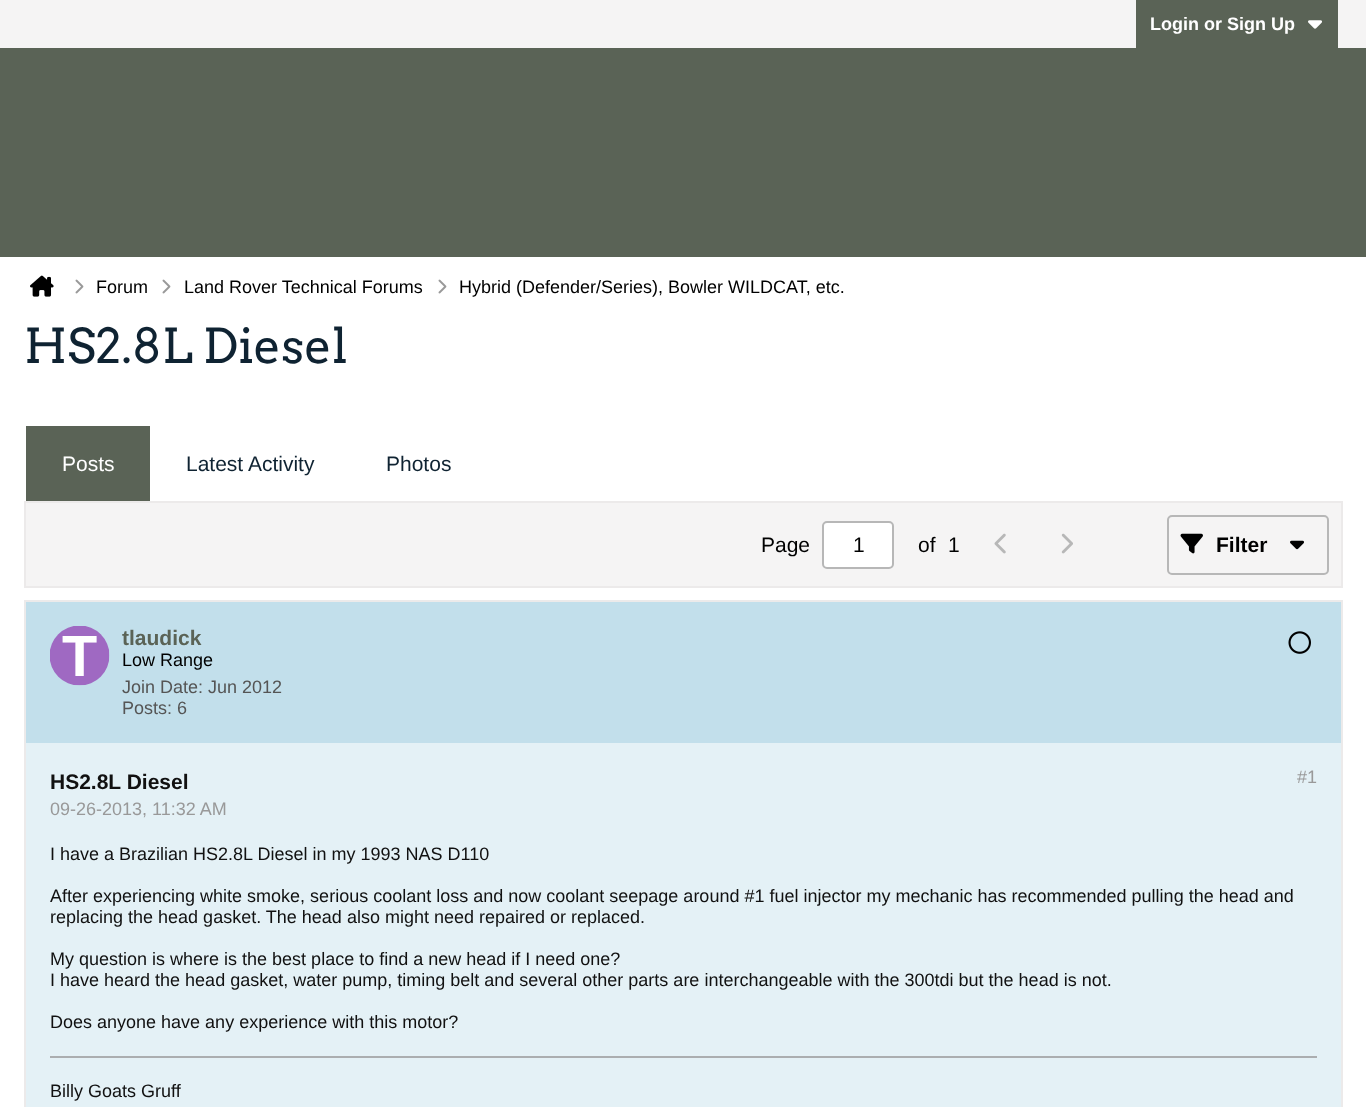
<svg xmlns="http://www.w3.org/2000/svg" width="1366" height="1107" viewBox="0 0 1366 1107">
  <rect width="100%" height="100%" fill="rgb(255,255,255)"/>
  <rect x="0" y="0" width="1366" height="48" fill="rgb(245,244,244)"/>
  <rect x="1136" y="0" width="202" height="48" fill="rgb(90,99,86)"/>
  <text x="1150" y="30" font-family="Liberation Sans" font-size="18" font-weight="bold" fill="rgb(255,255,255)">Login or Sign Up</text>
  <image x="1308" y="20" width="14" height="9" href="pic1.png"/>
  <rect x="0" y="48" width="1366" height="209" fill="rgb(90,99,86)"/>
  <image x="30" y="275" width="24" height="22" href="pic2.png"/>
  <image x="75" y="279" width="9" height="15" href="pic3.png"/>
  <text x="96" y="293" font-family="Liberation Sans" font-size="18" fill="rgb(0,0,0)">Forum</text>
  <image x="162" y="279" width="9" height="15" href="pic3.png"/>
  <text x="184" y="293" font-family="Liberation Sans" font-size="18" fill="rgb(0,0,0)">Land Rover Technical Forums</text>
  <image x="438" y="279" width="9" height="15" href="pic3.png"/>
  <text x="459" y="293" font-family="Liberation Sans" font-size="18" fill="rgb(0,0,0)">Hybrid (Defender/Series), Bowler WILDCAT, etc.</text>
  <text x="24" y="363" font-family="Arvo" font-size="48" fill="rgb(15,35,50)">HS2.8L Diesel</text>
  <rect x="26" y="426" width="124" height="75" fill="rgb(90,99,86)"/>
  <text x="62" y="471" font-family="Liberation Sans" font-size="21" fill="rgb(255,255,255)">Posts</text>
  <g font-family="Liberation Sans" font-size="21" fill="rgb(15,35,50)">
    <text x="186" y="471">Latest Activity</text>
    <text x="386" y="471">Photos</text>
  </g>
  <rect x="25" y="502" width="1317" height="85" fill="rgb(245,244,244)" stroke="rgb(236,234,234)" stroke-width="2"/>
  <text x="761" y="552" font-family="Liberation Sans" font-size="21" fill="rgb(0,0,0)">Page</text>
  <rect x="823" y="522" width="70" height="46" rx="4" fill="rgb(255,255,255)" stroke="rgb(183,183,183)" stroke-width="2"/>
  <g font-family="Liberation Sans" font-size="21" fill="rgb(0,0,0)">
    <text x="853" y="552">1</text>
    <text x="918" y="552">of</text>
    <text x="948" y="552">1</text>
  </g>
  <image x="994" y="533" width="12" height="21" href="pic4.png"/>
  <image x="1061" y="533" width="12" height="21" href="pic5.png"/>
  <rect x="1168" y="516" width="160" height="58" rx="4" fill="none" stroke="rgb(183,183,183)" stroke-width="2"/>
  <image x="1180" y="533" width="23" height="21" href="pic6.png"/>
  <text x="1216" y="552" font-family="Liberation Sans" font-size="21" font-weight="bold" fill="rgb(0,0,0)">Filter</text>
  <image x="1290" y="540" width="14" height="10" href="pic7.png"/>
  <rect x="26" y="602" width="1315" height="141" fill="rgb(194,223,235)"/>
  <rect x="25" y="601" width="1317" height="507" fill="none" stroke="rgb(236,234,234)" stroke-width="2"/>
  <image x="50" y="626" width="60" height="60" href="pic8.png"/>
  <text x="122" y="645" font-family="Liberation Sans" font-size="21" font-weight="bold" fill="rgb(90,99,86)">tlaudick</text>
  <text x="122" y="666" font-family="Liberation Sans" font-size="18" fill="rgb(0,0,0)">Low Range</text>
  <g font-family="Liberation Sans" font-size="18" fill="rgb(85,85,85)">
    <text>
      <tspan x="122" y="693">Join Date: Jun 2012</tspan>
      <tspan x="122" y="714">Posts: 6</tspan>
    </text>
  </g>
  <image x="1288" y="631" width="23" height="23" href="pic9.png"/>
  <rect x="26" y="743" width="1315" height="364" fill="rgb(228,241,246)"/>
  <text x="50" y="789" font-family="Liberation Sans" font-size="21" font-weight="bold" fill="rgb(17,17,17)">HS2.8L Diesel</text>
  <g font-family="Liberation Sans" font-size="18" fill="rgb(153,153,153)">
    <text x="50" y="815">09-26-2013, 11:32 AM</text>
    <text x="1297" y="783">#1</text>
  </g>
  <g font-family="Liberation Sans" font-size="18" fill="rgb(17,17,17)">
    <text x="50" y="860">I have a Brazilian HS2.8L Diesel in my 1993 NAS D110</text>
    <text>
      <tspan x="50" y="902">After experiencing white smoke, serious coolant loss and now coolant seepage around #1 fuel injector my mechanic has recommended pulling the head and</tspan>
      <tspan x="50" y="923">replacing the head gasket. The head also might need repaired or replaced.</tspan>
    </text>
    <text>
      <tspan x="50" y="965">My question is where is the best place to find a new head if I need one?</tspan>
      <tspan x="50" y="986">I have heard the head gasket, water pump, timing belt and several other parts are interchangeable with the 300tdi but the head is not.</tspan>
    </text>
    <text x="50" y="1028">Does anyone have any experience with this motor?</text>
  </g>
  <rect x="50" y="1056" width="1267" height="2" fill="rgb(171,174,176)"/>
  <text x="50" y="1097" font-family="Liberation Sans" font-size="18" fill="rgb(17,17,17)">Billy Goats Gruff</text>
</svg>
